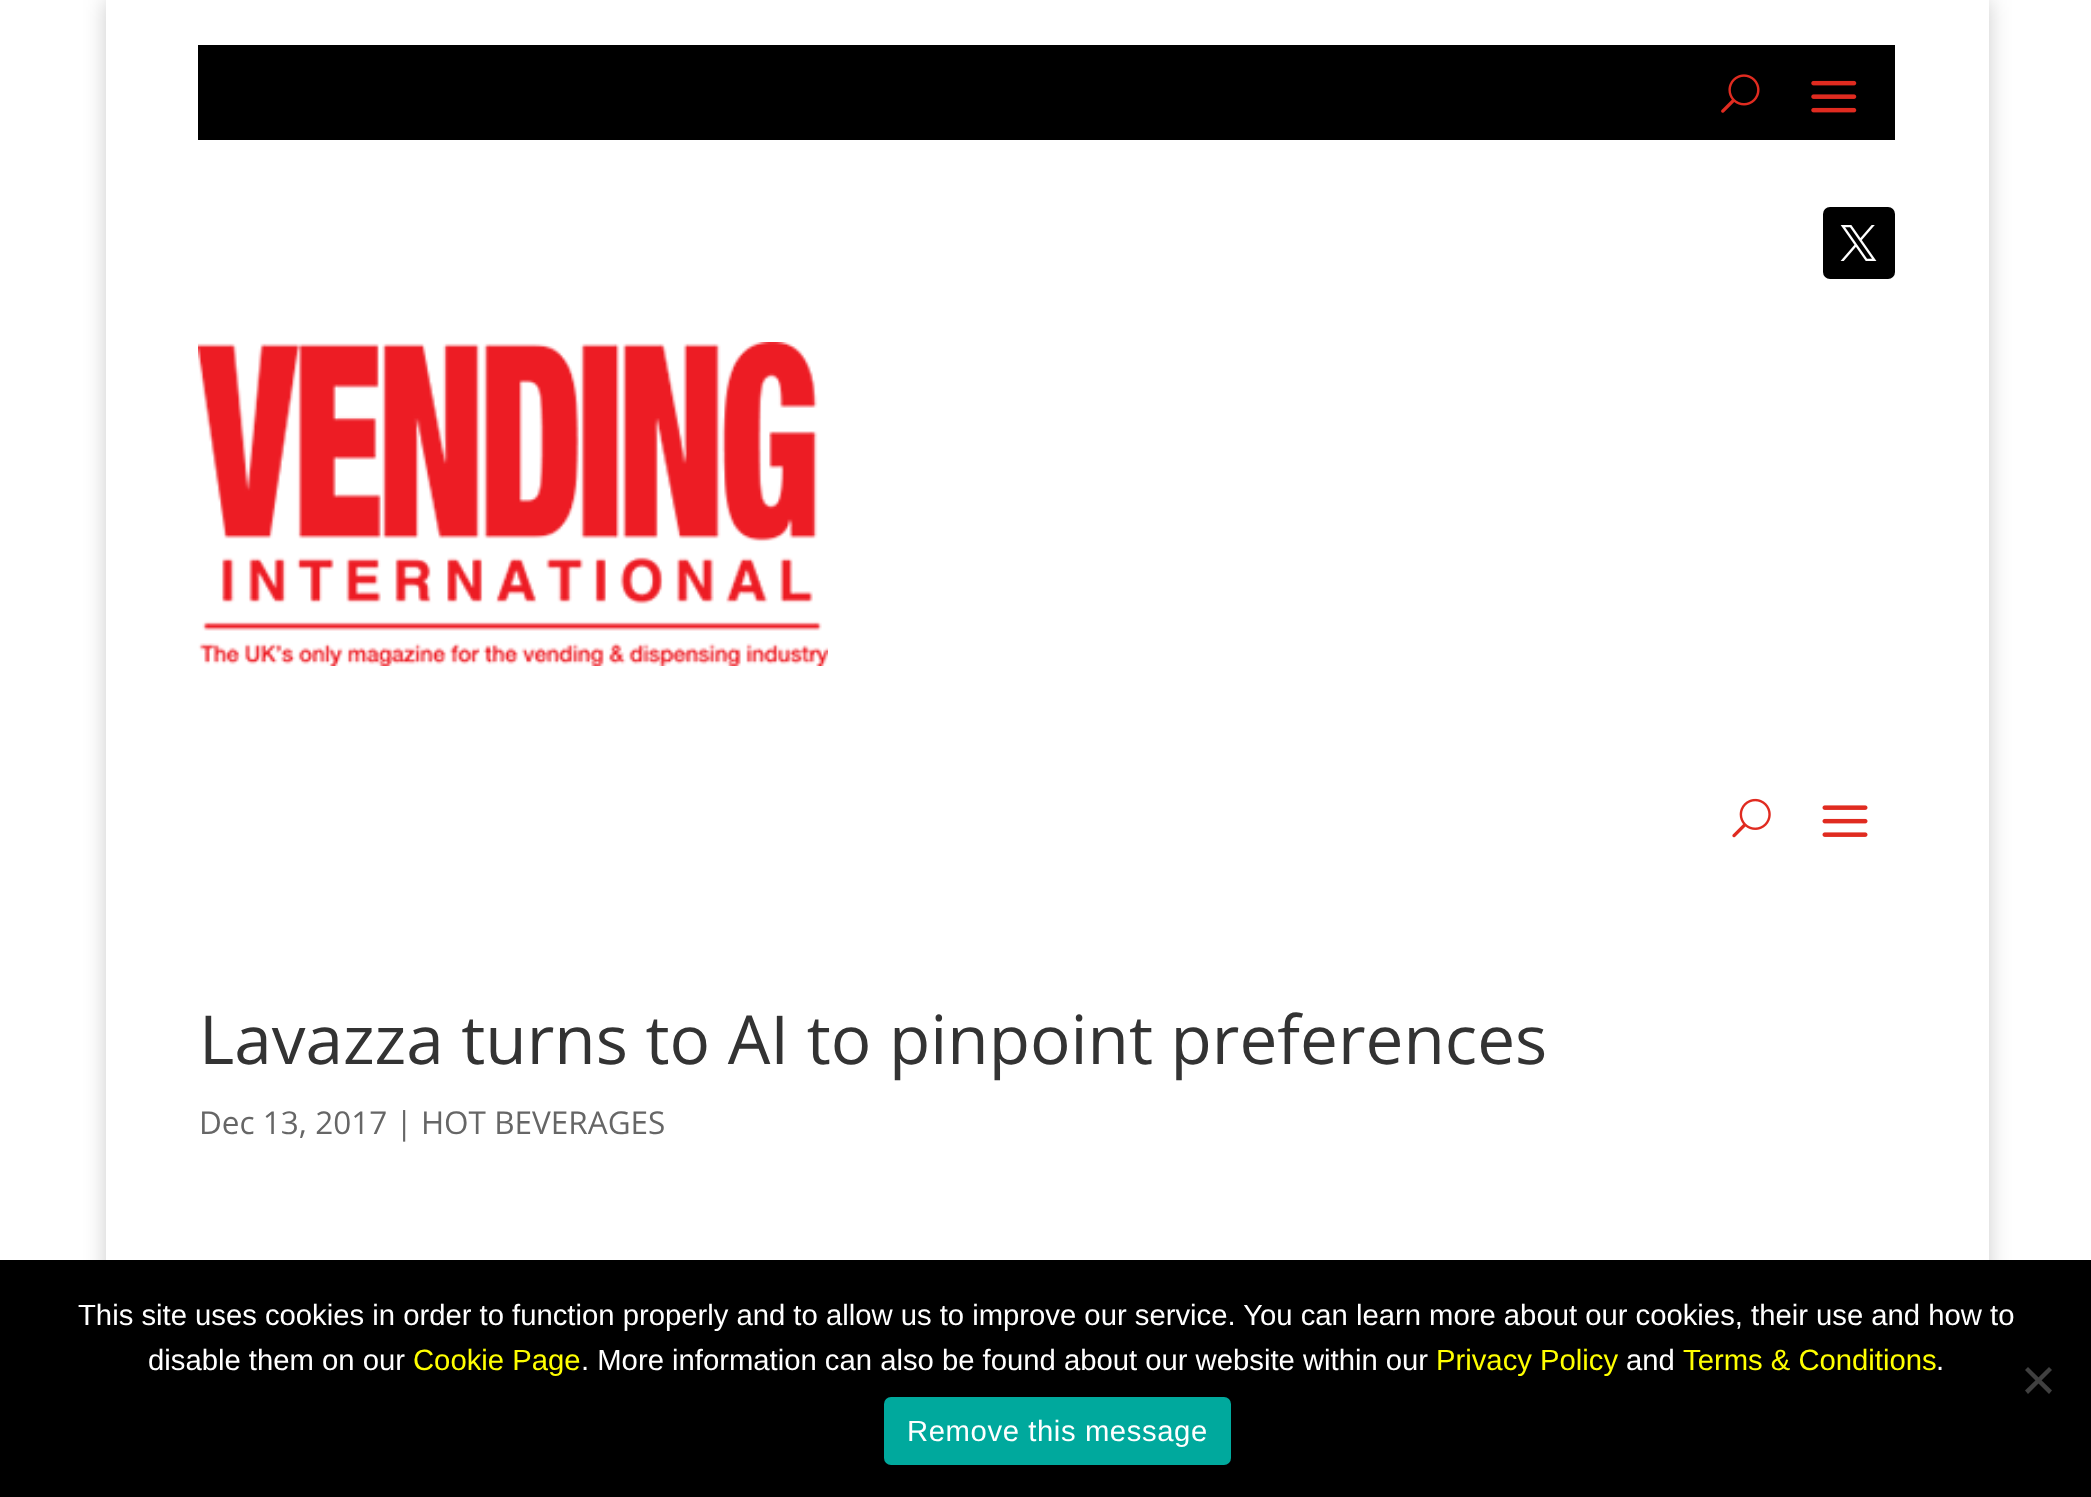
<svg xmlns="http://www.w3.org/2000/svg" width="2091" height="1497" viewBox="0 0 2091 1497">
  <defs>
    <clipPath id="clip1"><path d="M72 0H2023V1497H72ZM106 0H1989V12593H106Z" clip-rule="evenodd"/></clipPath>
  </defs>
  <rect width="100%" height="100%" fill="rgb(255,255,255)"/>
  <g clip-path="url(#clip1)">
    <rect x="106" y="0" width="1883" height="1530" fill="rgba(0,0,0,0.2)" filter="blur(11px)"/>
  </g>
  <rect x="198" y="45" width="1697" height="95" fill="rgb(0,0,0)"/>
  <image x="1721" y="74" width="39" height="39" href="pic1.png"/>
  <image x="1811" y="80" width="46" height="33" href="pic2.png"/>
  <rect x="1823" y="207" width="72" height="72" rx="7" fill="rgb(0,0,0)"/>
  <image x="1840" y="225" width="37" height="36" href="pic3.png"/>
  <image x="198" y="342" width="630" height="324" href="pic4.png"/>
  <image x="1732" y="798" width="39" height="40" href="pic5.png"/>
  <image x="1822" y="805" width="46" height="32" href="pic6.png"/>
  <text x="199" y="1064" font-family="Open Sans" font-size="67.5" fill="rgb(51,51,51)">Lavazza turns to AI to pinpoint preferences</text>
  <text x="199" y="1134" font-family="Open Sans" font-size="31.5" fill="rgb(102,102,102)">Dec 13, 2017 | HOT BEVERAGES</text>
  <rect x="0" y="1260" width="2091" height="237" fill="rgb(0,0,0)"/>
  <g font-family="Liberation Sans" font-size="29.25" fill="rgb(255,255,255)">
    <text x="78" y="1325">This site uses cookies in order to function properly and to allow us to improve our service. You can learn more about our cookies, their use and how to</text>
    <text x="148" y="1370">disable them on our</text>
  </g>
  <text x="413" y="1370" font-family="Liberation Sans" font-size="29.25" fill="rgb(255,255,0)">Cookie Page</text>
  <text x="581" y="1370" font-family="Liberation Sans" font-size="29.25" fill="rgb(255,255,255)">. More information can also be found about our website within our</text>
  <text x="1436" y="1370" font-family="Liberation Sans" font-size="29.25" fill="rgb(255,255,0)">Privacy Policy</text>
  <text x="1626" y="1370" font-family="Liberation Sans" font-size="29.25" fill="rgb(255,255,255)">and</text>
  <text x="1683" y="1370" font-family="Liberation Sans" font-size="29.25" fill="rgb(255,255,0)">Terms &amp; Conditions</text>
  <text x="1936" y="1370" font-family="Liberation Sans" font-size="29.25" fill="rgb(255,255,255)">.</text>
  <path d="M2049 1367L2052 1370L2028 1394L2025 1390.5Z" fill="rgb(64,64,64)"/>
  <path d="M2025 1370L2028 1367L2052 1390.5L2049 1394Z" fill="rgb(64,64,64)"/>
  <rect x="884" y="1397" width="347" height="68" rx="7" fill="rgb(0,169,157)"/>
  <text x="907" y="1441" font-family="Liberation Sans" font-size="29.25" letter-spacing="0.6" fill="rgb(255,255,255)">Remove this message</text>
</svg>
